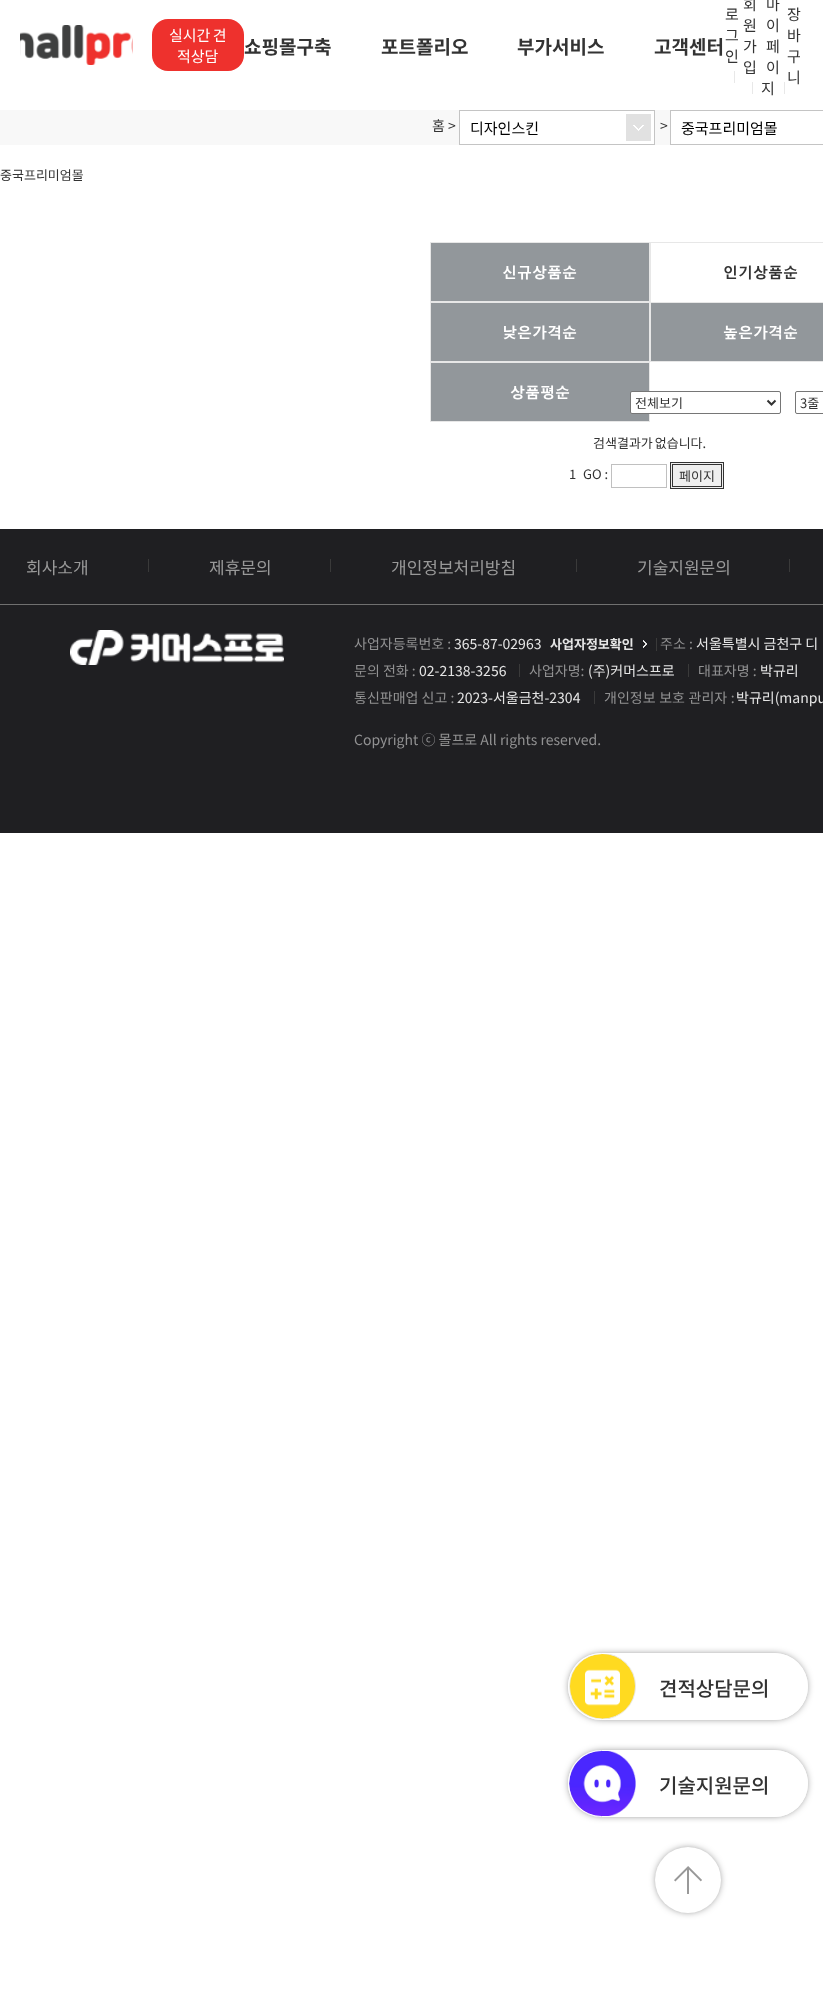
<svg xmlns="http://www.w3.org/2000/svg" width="823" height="2013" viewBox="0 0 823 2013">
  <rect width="100%" height="100%" fill="rgb(255,255,255)"/>
  <image x="20" y="25" width="113" height="40" href="pic1.png"/>
  <rect x="152" y="19" width="92" height="52" rx="16" fill="rgb(238,49,45)"/>
  <g font-family="Noto Sans CJK KR" font-size="15" fill="rgb(255,255,255)">
    <text x="169" y="41" word-spacing="-1">실시간 견</text>
    <text x="177" y="62">적상담</text>
  </g>
  <g font-family="Noto Sans CJK KR" font-size="19" font-weight="bold" fill="rgb(51,51,51)">
    <text x="244" y="54">쇼핑몰구축</text>
    <text x="381" y="54">포트폴리오</text>
    <text x="517" y="54">부가서비스</text>
    <text x="654" y="54">고객센터</text>
  </g>
  <g font-family="Noto Sans CJK KR" font-size="15" fill="rgb(51,51,51)">
    <text>
      <tspan x="725" y="20">로</tspan>
      <tspan x="725" y="41">그</tspan>
      <tspan x="725" y="62">인</tspan>
    </text>
  </g>
  <rect x="734" y="71" width="1" height="12" fill="rgb(232,232,232)"/>
  <g font-family="Noto Sans CJK KR" font-size="15" fill="rgb(51,51,51)">
    <text>
      <tspan x="743" y="10">회</tspan>
      <tspan x="743" y="31">원</tspan>
      <tspan x="743" y="52">가</tspan>
      <tspan x="743" y="73">입</tspan>
    </text>
  </g>
  <rect x="752" y="82" width="1" height="12" fill="rgb(232,232,232)"/>
  <g font-family="Noto Sans CJK KR" font-size="15" fill="rgb(51,51,51)">
    <text>
      <tspan x="766" y="10">마</tspan>
      <tspan x="766" y="31">이</tspan>
      <tspan x="766" y="52">페</tspan>
      <tspan x="766" y="73">이</tspan>
    </text>
    <text x="761" y="94">지</text>
  </g>
  <rect x="784" y="82" width="1" height="12" fill="rgb(232,232,232)"/>
  <g font-family="Noto Sans CJK KR" font-size="15" fill="rgb(51,51,51)">
    <text>
      <tspan x="787" y="20">장</tspan>
      <tspan x="787" y="41">바</tspan>
      <tspan x="787" y="62">구</tspan>
      <tspan x="787" y="83">니</tspan>
    </text>
  </g>
  <rect x="572" y="1657" width="232" height="59" rx="29.5" fill="rgb(0,0,0)" filter="blur(5px)"/>
  <rect x="568" y="1653" width="240" height="67" rx="33.5" fill="rgb(255,255,255)"/>
  <image x="569" y="1653" width="67" height="67" href="pic2.png"/>
  <rect x="568.5" y="1653.5" width="239" height="66" rx="33" fill="none" stroke="rgb(255,255,255)"/>
  <text x="659" y="1696" font-family="Noto Sans CJK KR" font-size="20" font-weight="500" fill="rgb(51,51,51)">견적상담문의</text>
  <rect x="572" y="1754" width="232" height="59" rx="29.5" fill="rgb(0,0,0)" filter="blur(5px)"/>
  <rect x="568" y="1750" width="240" height="67" rx="33.5" fill="rgb(255,255,255)"/>
  <image x="569" y="1750" width="67" height="67" href="pic3.png"/>
  <rect x="568.5" y="1750.5" width="239" height="66" rx="33" fill="none" stroke="rgb(255,255,255)"/>
  <text x="659" y="1793" font-family="Noto Sans CJK KR" font-size="20" font-weight="500" fill="rgb(51,51,51)">기술지원문의</text>
  <rect x="659" y="1851" width="58" height="58" rx="29" fill="rgb(0,0,0)" filter="blur(5px)"/>
  <circle cx="688" cy="1880" r="33" fill="rgb(255,255,255)"/>
  <image x="674" y="1866" width="28" height="28" href="pic4.png"/>
  <rect x="0" y="110" width="670" height="35" fill="rgb(248,248,248)"/>
  <text x="432" y="131" font-family="Noto Sans CJK KR" font-size="14" fill="rgb(51,51,51)">홈 &gt;</text>
  <rect x="459.5" y="110.5" width="195" height="34" fill="rgb(255,255,255)" stroke="rgb(196,196,196)"/>
  <text x="470" y="134" font-family="Noto Sans CJK KR" font-size="15" fill="rgb(0,0,0)">디자인스킨</text>
  <image x="626" y="114" width="25" height="27" href="pic5.png"/>
  <text x="660" y="131" font-family="Noto Sans CJK KR" font-size="14" fill="rgb(51,51,51)">&gt;</text>
  <rect x="670.5" y="110.5" width="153" height="34" fill="none" stroke="rgb(196,196,196)"/>
  <text x="681" y="134" font-family="Noto Sans CJK KR" font-size="15" fill="rgb(0,0,0)">중국프리미엄몰</text>
  <text x="0" y="180" font-family="Noto Sans CJK KR" font-size="13" fill="rgb(51,51,51)">중국프리미엄몰</text>
  <rect x="430.5" y="242.5" width="219" height="59" fill="rgb(146,151,155)" stroke="rgb(231,231,231)"/>
  <text x="502" y="277" font-family="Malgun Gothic" font-size="15" font-weight="bold" fill="rgb(255,255,255)">신규상품순</text>
  <rect x="650" y="242" width="173" height="1" fill="rgb(231,231,231)"/>
  <rect x="650" y="242" width="1" height="60" fill="rgb(231,231,231)"/>
  <text x="723" y="277" font-family="Malgun Gothic" font-size="15" font-weight="bold" fill="rgb(51,51,51)">인기상품순</text>
  <rect x="430.5" y="302.5" width="219" height="59" fill="rgb(146,151,155)" stroke="rgb(231,231,231)"/>
  <text x="502" y="337" font-family="Malgun Gothic" font-size="15" font-weight="bold" fill="rgb(255,255,255)">낮은가격순</text>
  <rect x="650.5" y="302.5" width="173" height="59" fill="rgb(146,151,155)" stroke="rgb(231,231,231)"/>
  <text x="723" y="337" font-family="Malgun Gothic" font-size="15" font-weight="bold" fill="rgb(255,255,255)">높은가격순</text>
  <rect x="430.5" y="362.5" width="219" height="59" fill="rgb(146,151,155)" stroke="rgb(231,231,231)"/>
  <text x="510" y="397" font-family="Malgun Gothic" font-size="15" font-weight="bold" fill="rgb(255,255,255)">상품평순</text>
  <rect x="630.5" y="391.5" width="150" height="22" rx="1.5" fill="rgb(255,255,255)" stroke="rgb(118,118,118)"/>
  <path d="M767.5 400.5L771.5 404.5L775.5 400.5" fill="none" stroke="rgb(51,51,51)" stroke-width="2"/>
  <text x="635" y="408" font-family="Noto Sans CJK KR" font-size="13" fill="rgb(51,51,51)">전체보기</text>
  <rect x="795.5" y="391.5" width="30" height="22" rx="1.5" fill="none" stroke="rgb(118,118,118)"/>
  <g font-family="Noto Sans CJK KR" font-size="13" fill="rgb(51,51,51)">
    <text x="800" y="408" word-spacing="-1">3줄</text>
    <text x="593" y="448" word-spacing="-1">검색결과가 없습니다.</text>
    <text x="569" y="479">1</text>
    <text x="583" y="479">GO :</text>
  </g>
  <rect x="611.5" y="464.5" width="55" height="23" fill="none" stroke="rgb(192,192,192)"/>
  <rect x="670.5" y="462.5" width="53" height="26" fill="rgb(239,239,239)" stroke="rgb(51,51,51)"/>
  <rect x="672.5" y="464.5" width="49" height="22" fill="none" stroke="rgb(51,51,51)"/>
  <text x="679" y="481" font-family="Noto Sans CJK KR" font-size="13" fill="rgb(51,51,51)">페이지</text>
  <rect x="0" y="529" width="823" height="304" fill="rgb(31,31,34)"/>
  <rect x="0" y="604" width="823" height="1" fill="rgb(112,112,112)"/>
  <text x="26" y="574" font-family="Noto Sans CJK KR" font-size="17" fill="rgb(153,153,153)">회사소개</text>
  <rect x="148" y="559" width="1" height="13" fill="rgb(58,58,58)"/>
  <text x="209" y="574" font-family="Noto Sans CJK KR" font-size="17" fill="rgb(153,153,153)">제휴문의</text>
  <rect x="330" y="559" width="1" height="13" fill="rgb(58,58,58)"/>
  <text x="391" y="574" font-family="Noto Sans CJK KR" font-size="17" fill="rgb(153,153,153)">개인정보처리방침</text>
  <rect x="576" y="559" width="1" height="13" fill="rgb(58,58,58)"/>
  <text x="637" y="574" font-family="Noto Sans CJK KR" font-size="17" fill="rgb(153,153,153)">기술지원문의</text>
  <rect x="789" y="559" width="1" height="13" fill="rgb(58,58,58)"/>
  <image x="70" y="630" width="214" height="35" href="pic6.png"/>
  <text x="354" y="649" font-family="Noto Sans CJK KR" font-size="14" fill="rgb(145,145,146)">사업자등록번호 :</text>
  <text x="454" y="649" font-family="Noto Sans CJK KR" font-size="14" fill="rgb(229,229,229)">365-87-02963</text>
  <image x="643" y="640" width="4" height="8" href="pic7.png"/>
  <text x="550" y="649" font-family="Noto Sans CJK KR" font-size="13" font-weight="bold" fill="rgb(229,229,229)">사업자정보확인</text>
  <rect x="656" y="638" width="1" height="13" fill="rgb(58,58,58)"/>
  <text x="660" y="649" font-family="Noto Sans CJK KR" font-size="14" fill="rgb(145,145,146)">주소 :</text>
  <text x="696" y="649" font-family="Noto Sans CJK KR" font-size="14" fill="rgb(229,229,229)">서울특별시 금천구 디</text>
  <text x="354" y="676" font-family="Noto Sans CJK KR" font-size="14" fill="rgb(145,145,146)">문의 전화 :</text>
  <text x="419" y="676" font-family="Noto Sans CJK KR" font-size="14" fill="rgb(229,229,229)">02-2138-3256</text>
  <rect x="519" y="664" width="1" height="13" fill="rgb(58,58,58)"/>
  <text x="529" y="676" font-family="Noto Sans CJK KR" font-size="14" fill="rgb(145,145,146)">사업자명:</text>
  <text x="588" y="676" font-family="Noto Sans CJK KR" font-size="14" fill="rgb(229,229,229)">(주)커머스프로</text>
  <rect x="688" y="664" width="1" height="13" fill="rgb(58,58,58)"/>
  <text x="698" y="676" font-family="Noto Sans CJK KR" font-size="14" fill="rgb(145,145,146)">대표자명 :</text>
  <text x="760" y="676" font-family="Noto Sans CJK KR" font-size="14" fill="rgb(229,229,229)">박규리</text>
  <text x="354" y="703" font-family="Noto Sans CJK KR" font-size="14" fill="rgb(145,145,146)">통신판매업 신고 :</text>
  <text x="457" y="703" font-family="Noto Sans CJK KR" font-size="14" fill="rgb(229,229,229)">2023-서울금천-2304</text>
  <rect x="594" y="691" width="1" height="13" fill="rgb(58,58,58)"/>
  <text x="604" y="703" word-spacing="0.5" font-family="Noto Sans CJK KR" font-size="14" fill="rgb(145,145,146)">개인정보 보호 관리자 :</text>
  <text x="736" y="703" font-family="Noto Sans CJK KR" font-size="14" fill="rgb(229,229,229)">박규리(manpu</text>
  <text x="354" y="745" font-family="Noto Sans CJK KR" font-size="14" fill="rgb(145,145,146)">Copyright ⓒ 몰프로 All rights reserved.</text>
</svg>
